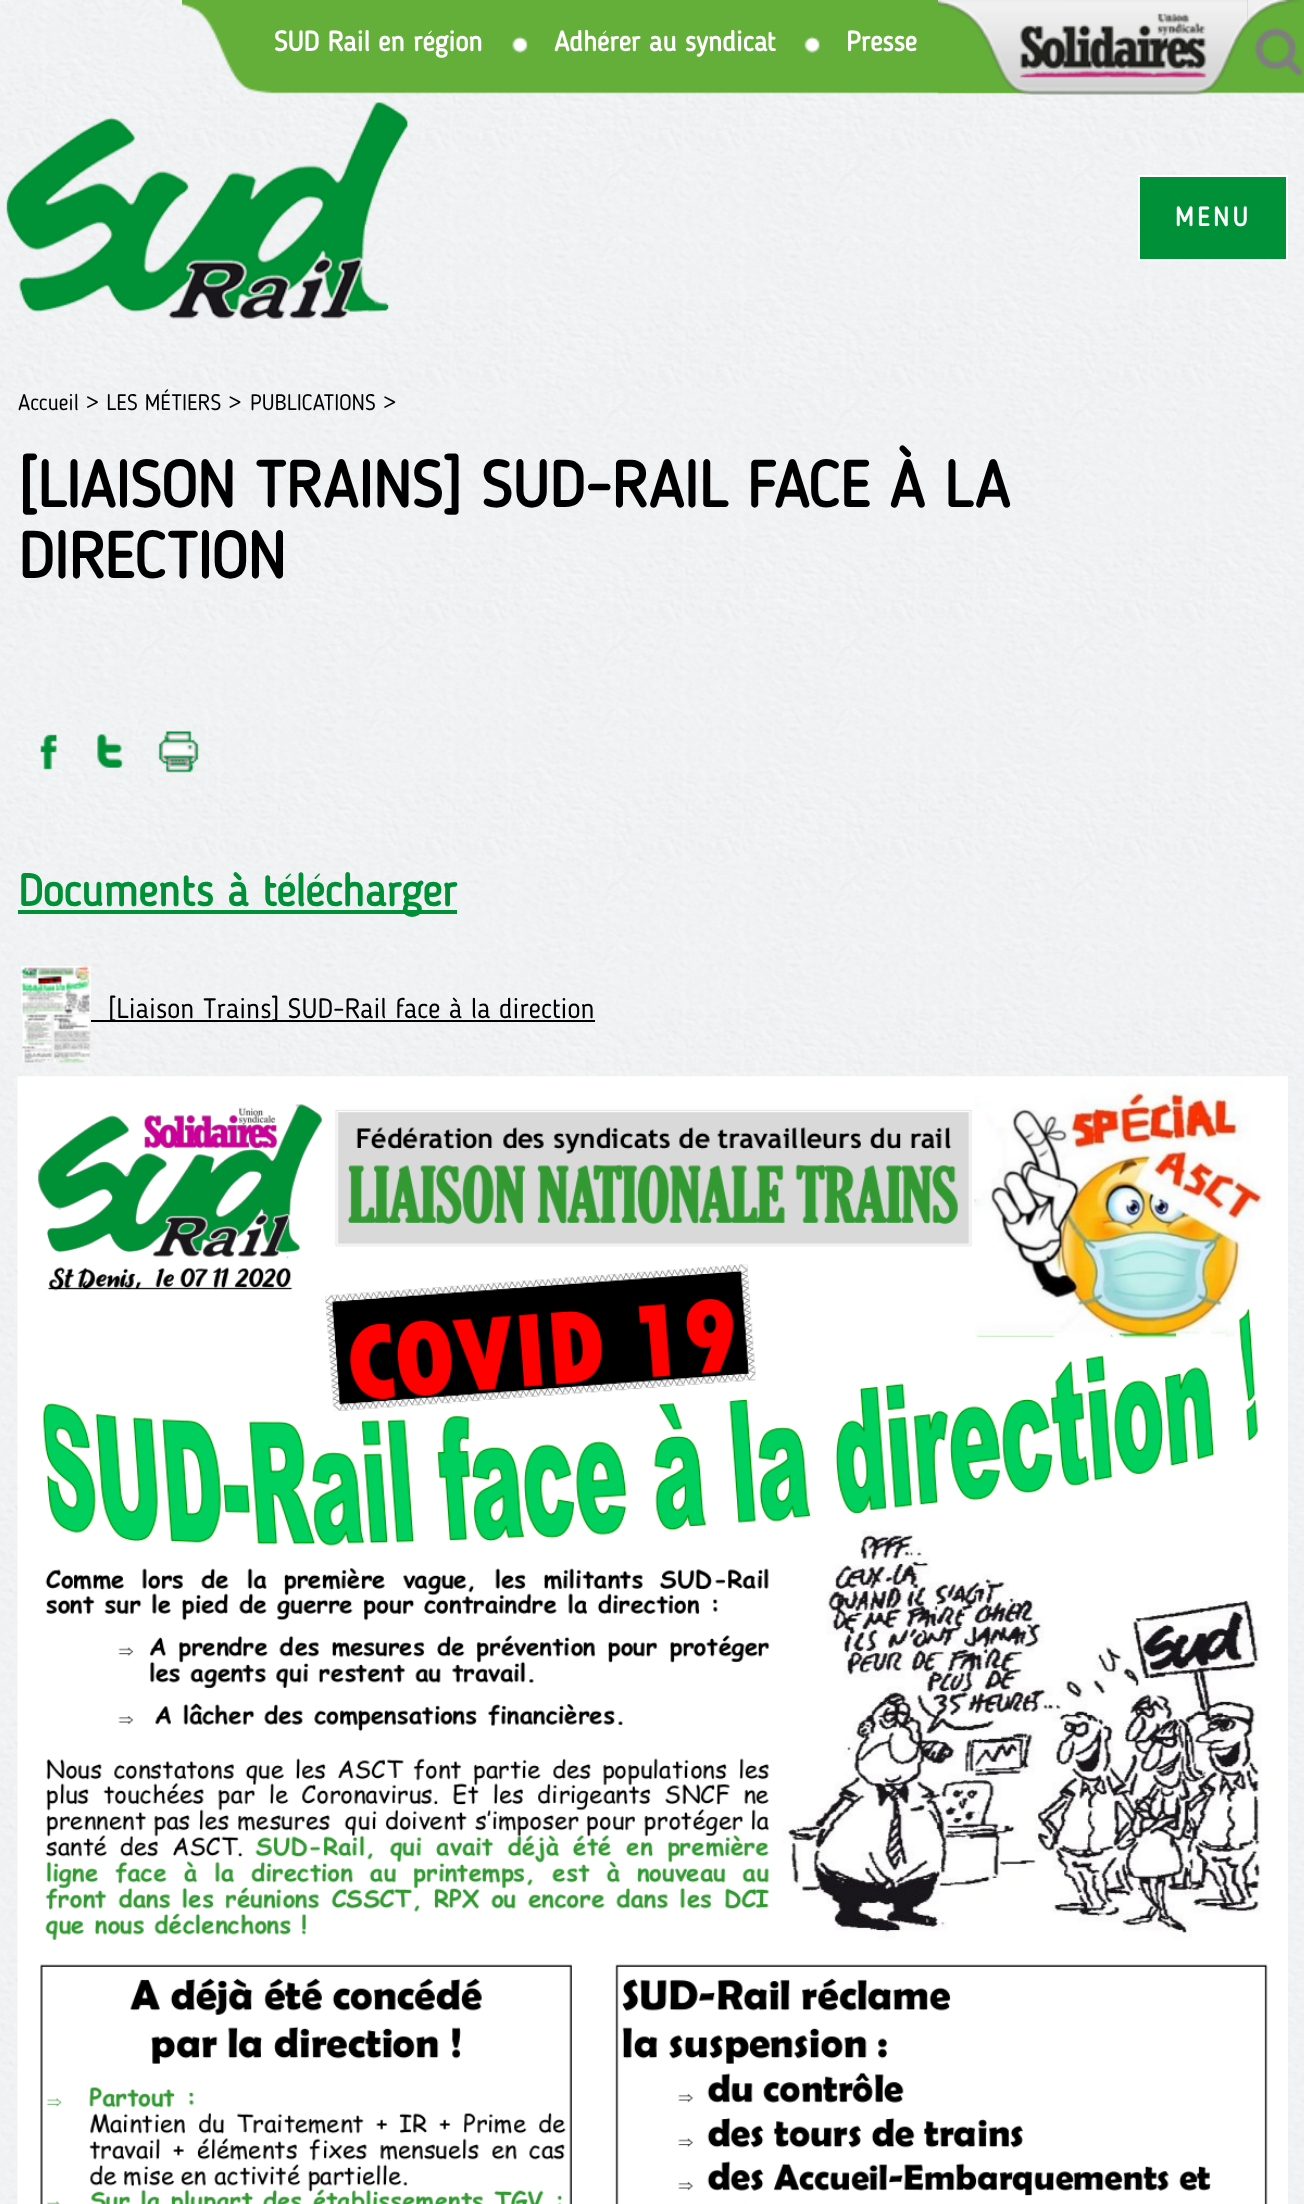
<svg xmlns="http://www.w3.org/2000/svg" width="1304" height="2204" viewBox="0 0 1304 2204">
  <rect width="100%" height="100%" fill="rgb(255,255,255)"/>
  <image x="0" y="0" width="1304" height="2204" href="pic1.png"/>
  <image x="182" y="0" width="1122" height="94" href="pic2.png"/>
  <text x="274" y="51" font-family="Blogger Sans" font-size="28" font-weight="bold" fill="rgb(255,255,255)">SUD Rail en région</text>
  <image x="512" y="36" width="16" height="17" href="pic3.png"/>
  <text x="554" y="51" font-family="Blogger Sans" font-size="28" font-weight="bold" fill="rgb(255,255,255)">Adhérer au syndicat</text>
  <image x="804" y="36" width="16" height="17" href="pic4.png"/>
  <text x="846" y="51" font-family="Blogger Sans" font-size="28" font-weight="bold" fill="rgb(255,255,255)">Presse</text>
  <image x="938" y="0" width="310" height="95" href="pic5.png"/>
  <image x="1247" y="0" width="56" height="76" href="pic6.png"/>
  <image x="6" y="102" width="402" height="217" href="pic7.png"/>
  <rect x="1139" y="176" width="148" height="84" fill="rgb(0,144,55)" stroke="rgb(255,255,255)" stroke-width="2"/>
  <text x="1175" y="226" font-family="Blogger Sans" font-size="26.5" font-weight="bold" letter-spacing="3.5" fill="rgb(255,255,255)">MENU</text>
  <g font-family="Blogger Sans" font-size="22.4" fill="rgb(0,0,0)">
    <text x="18" y="410">Accueil &gt; LES MÉTIERS &gt;</text>
    <text x="250" y="410">PUBLICATIONS &gt;</text>
  </g>
  <g font-family="Blogger Sans" font-size="64.4" font-weight="bold" fill="rgb(0,0,0)">
    <text>
      <tspan x="18" y="507">[LIAISON TRAINS] SUD-RAIL FACE À LA</tspan>
      <tspan x="18" y="578">DIRECTION</tspan>
    </text>
  </g>
  <image x="17" y="709" width="57" height="79" href="pic8.png"/>
  <image x="82" y="709" width="56" height="76" href="pic9.png"/>
  <image x="147" y="704" width="65" height="89" href="pic10.png"/>
  <rect x="18" y="910" width="439" height="4" fill="rgb(0,144,56)"/>
  <text x="18" y="906" font-family="Blogger Sans" font-size="44.75" font-weight="bold" fill="rgb(0,144,56)">Documents à télécharger</text>
  <image x="21" y="966" width="70" height="98" href="pic11.png"/>
  <rect x="91" y="1020" width="504" height="2" fill="rgb(0,0,0)"/>
  <text x="108" y="1018" font-family="Blogger Sans" font-size="28" fill="rgb(0,0,0)">[Liaison Trains] SUD-Rail face à la direction</text>
  <image x="17" y="1076" width="1271" height="1128" href="pic12.png"/>
</svg>
